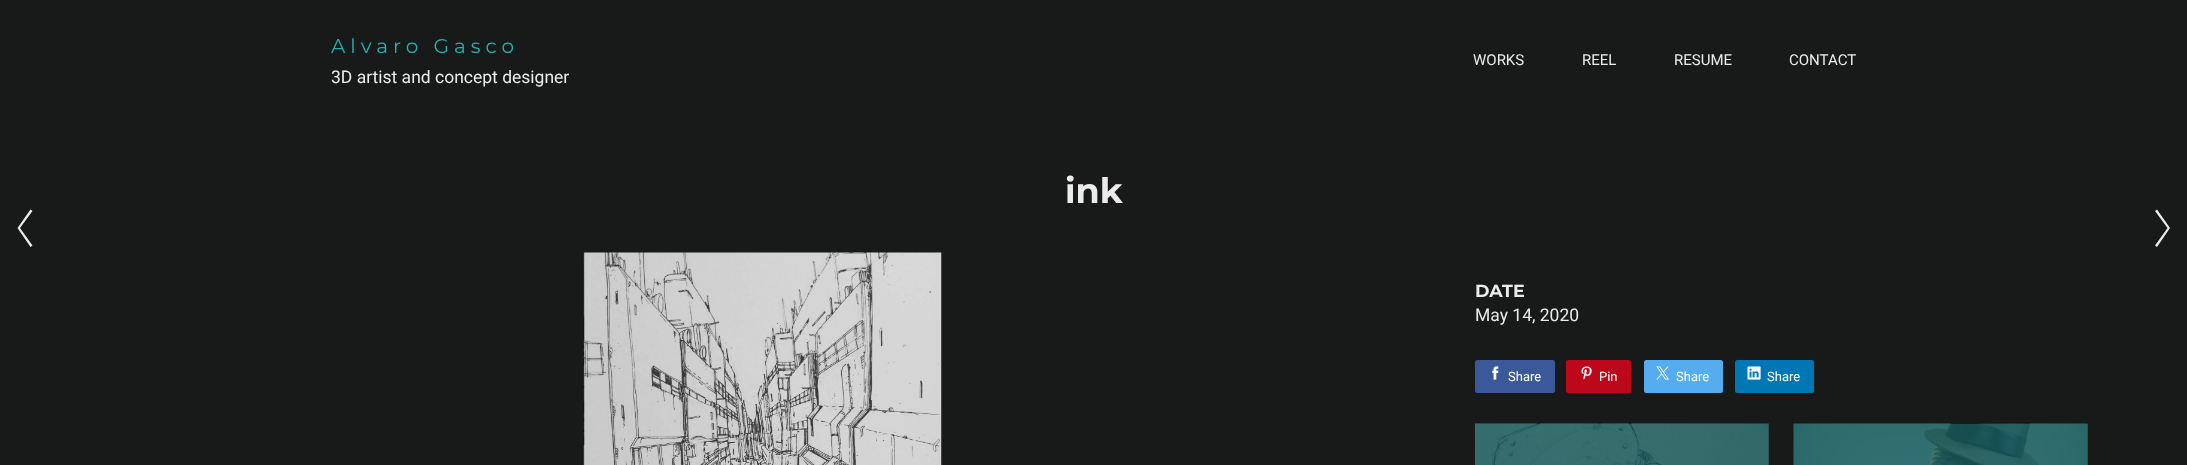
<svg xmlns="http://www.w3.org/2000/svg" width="2187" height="465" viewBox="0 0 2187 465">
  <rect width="100%" height="100%" fill="rgb(24,26,26)"/>
  <text x="331" y="53" font-family="Montserrat" font-size="20" letter-spacing="5" fill="rgb(40,175,176)">Alvaro Gasco</text>
  <text x="331" y="83" font-family="Roboto" font-size="17.5" fill="rgb(235,235,235)">3D artist and concept designer</text>
  <g font-family="Roboto" font-size="15" fill="rgb(235,235,235)">
    <text x="1473" y="65">WORKS</text>
    <text x="1582" y="65">REEL</text>
    <text x="1674" y="65">RESUME</text>
    <text x="1789" y="65">CONTACT</text>
  </g>
  <path d="M30.5 247L32.5 245.5L20 228L32.5 211L30.5 209.5L17.5 228Z" fill="rgb(235,235,235)"/>
  <text x="1065" y="203" font-family="Montserrat" font-size="35" font-weight="bold" fill="rgb(235,235,235)">ink</text>
  <image x="583" y="252" width="359" height="213" href="pic1.png"/>
  <text x="1475" y="297" font-family="Montserrat" font-size="17.5" font-weight="bold" fill="rgb(235,235,235)">DATE</text>
  <text x="1475" y="321" font-family="Roboto" font-size="17.5" fill="rgb(235,235,235)">May 14, 2020</text>
  <rect x="1475" y="360" width="80" height="33" rx="2.5" fill="rgb(59,89,153)"/>
  <image x="1492" y="366" width="7" height="14" href="pic2.png"/>
  <text x="1508" y="381" font-family="Roboto" font-size="13" fill="rgb(255,255,255)">Share</text>
  <rect x="1566" y="360" width="65" height="33" rx="2.5" fill="rgb(189,8,28)"/>
  <image x="1581" y="366" width="11" height="14" href="pic3.png"/>
  <text x="1599" y="381" font-family="Roboto" font-size="13" fill="rgb(255,255,255)">Pin</text>
  <rect x="1644" y="360" width="79" height="33" rx="2.5" fill="rgb(85,172,238)"/>
  <image x="1656" y="366" width="13" height="14" href="pic4.png"/>
  <text x="1676" y="381" font-family="Roboto" font-size="13" fill="rgb(255,255,255)">Share</text>
  <rect x="1735" y="360" width="79" height="33" rx="2.5" fill="rgb(0,119,181)"/>
  <image x="1747" y="366" width="14" height="14" href="pic5.png"/>
  <text x="1767" y="381" font-family="Roboto" font-size="13" fill="rgb(255,255,255)">Share</text>
  <image x="1475" y="423" width="294" height="42" href="pic6.png"/>
  <rect x="2087" y="424" width="1" height="41" fill="rgb(19,76,77)"/>
  <image x="1793" y="423" width="295" height="42" href="pic7.png"/>
  <path d="M2157 247L2155 245.5L2167.5 228L2155 211L2157 209.5L2170 228Z" fill="rgb(235,235,235)"/>
</svg>
